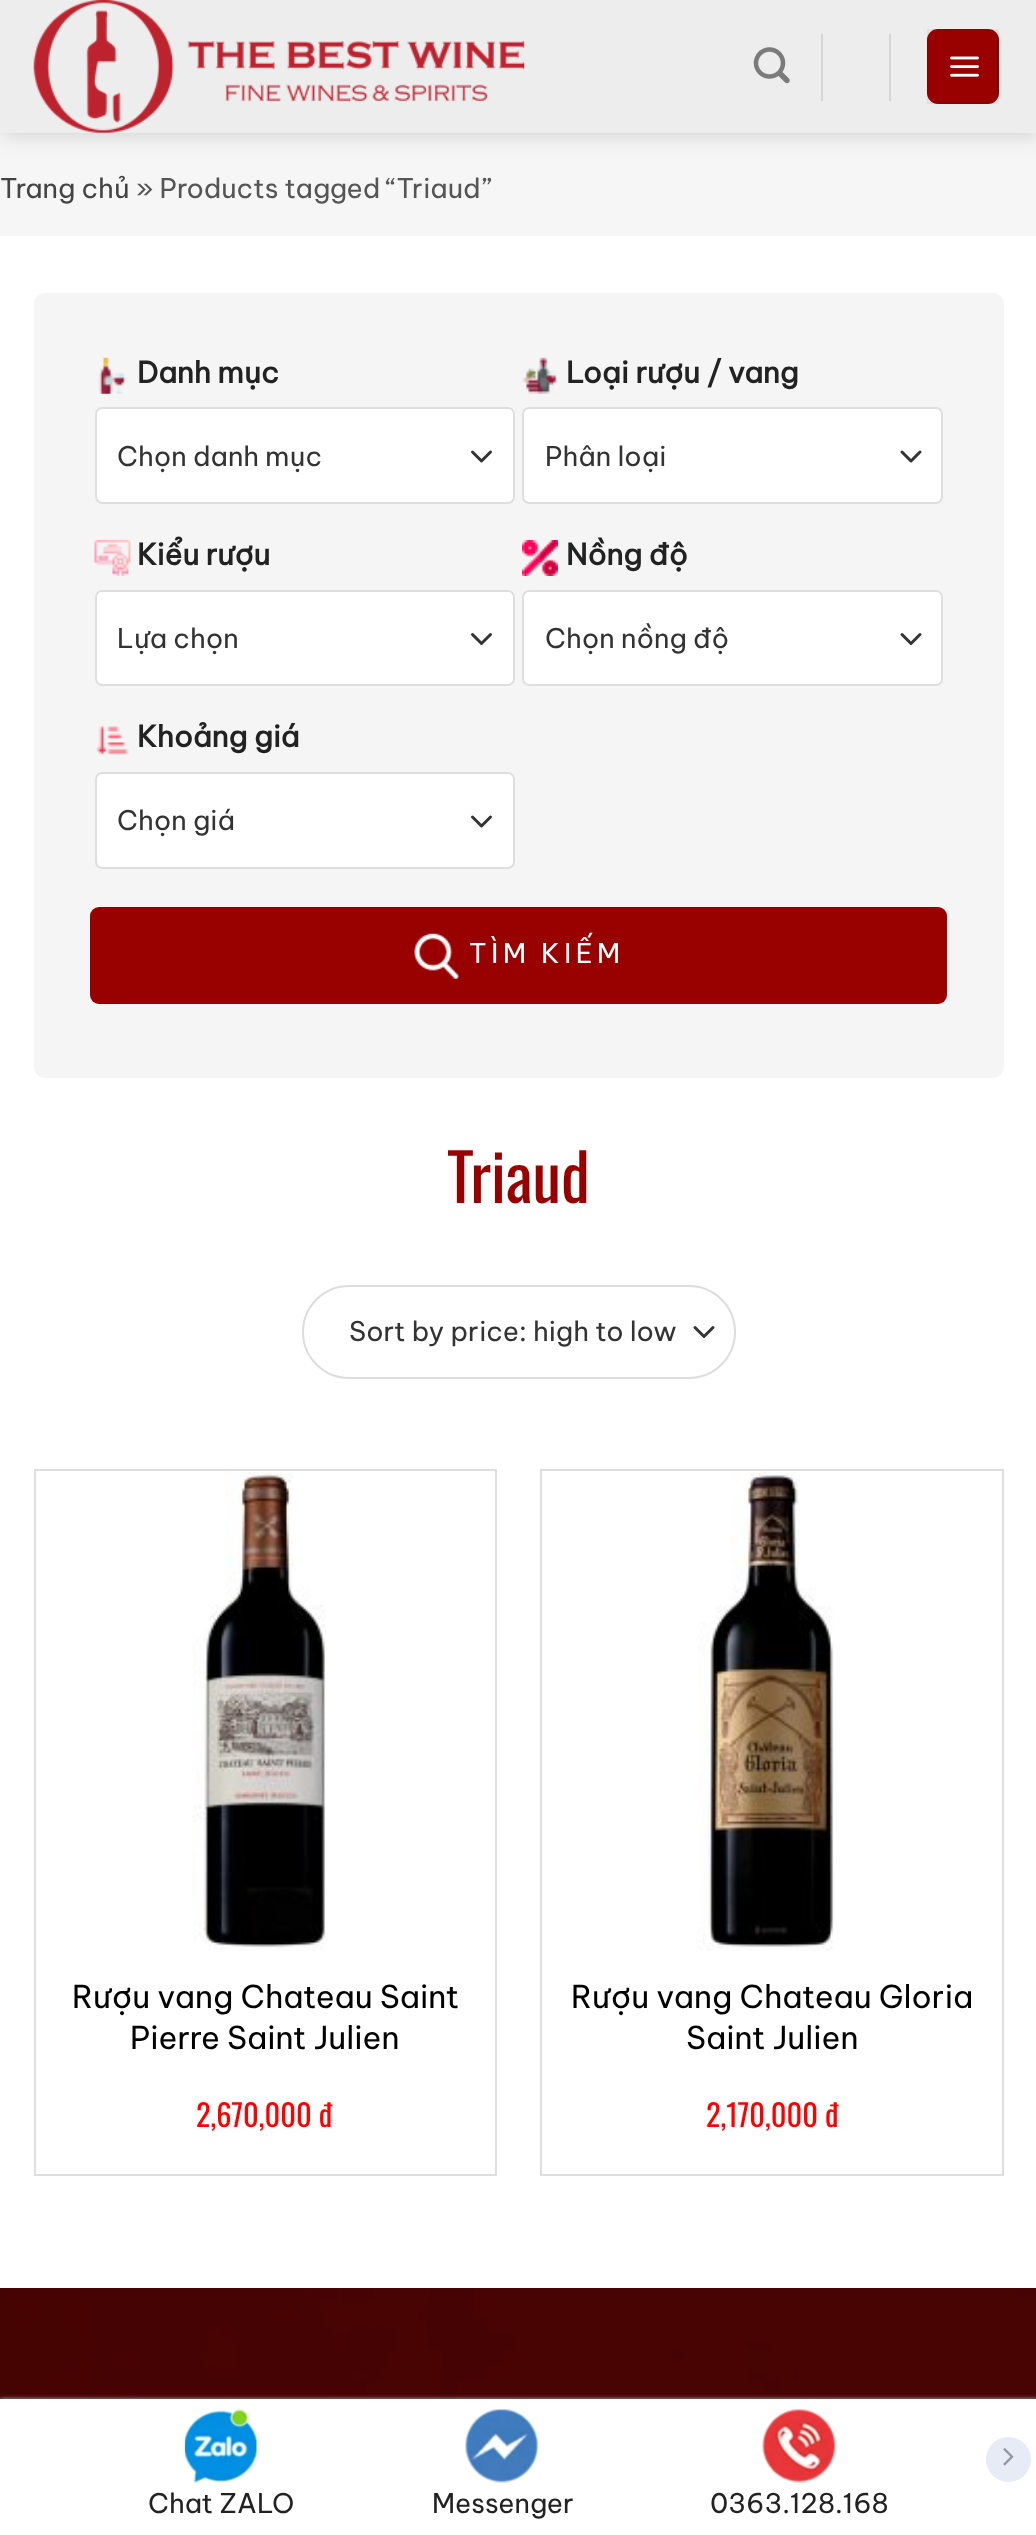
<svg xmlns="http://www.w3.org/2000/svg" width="1036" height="2535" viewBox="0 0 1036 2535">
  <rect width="100%" height="100%" fill="rgb(255,255,255)"/>
  <rect x="0" y="133" width="1036" height="103" fill="rgb(246,246,246)"/>
  <rect x="2" y="2" width="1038" height="133" fill="rgba(0,0,0,0.15)" filter="blur(11px)"/>
  <rect x="0" y="0" width="1036" height="133" fill="rgb(237,237,237)"/>
  <image x="33" y="0" width="492" height="133" href="pic1.png"/>
  <image x="753" y="47" width="37" height="37" href="pic2.png"/>
  <rect x="821" y="34" width="2" height="67" fill="rgb(213,213,213)"/>
  <rect x="889" y="34" width="2" height="67" fill="rgb(213,213,213)"/>
  <rect x="927" y="29" width="72" height="75" rx="11" fill="rgb(153,0,0)"/>
  <rect x="928" y="30" width="70" height="73" fill="none" stroke="rgba(0,0,0,0.05)" stroke-width="2"/>
  <image x="950" y="56" width="29" height="21" href="pic3.png"/>
  <text x="0" y="198" font-family="Be Vietnam Pro" font-size="27" fill="rgb(68,68,68)">Trang chủ</text>
  <text x="136" y="198" font-family="Be Vietnam Pro" font-size="27" fill="rgb(85,85,85)">» Products tagged “Triaud”</text>
  <rect x="34" y="293" width="970" height="785" rx="11" fill="rgb(245,245,245)"/>
  <image x="98" y="357" width="29" height="37" href="pic4.png"/>
  <text x="137" y="383" font-family="Be Vietnam Pro" font-size="29.25" font-weight="bold" fill="rgb(34,34,34)">Danh mục</text>
  <rect x="95" y="407" width="420" height="97" rx="7" fill="rgb(255,255,255)"/>
  <path d="M472.5 452L481.5 461L490.5 452" fill="none" stroke="rgb(51,51,51)" stroke-width="3" stroke-linecap="round" stroke-linejoin="round"/>
  <rect x="96" y="408" width="418" height="95" rx="6" fill="none" stroke="rgb(222,222,222)" stroke-width="2"/>
  <text x="117" y="466" font-family="Be Vietnam Pro" font-size="27" fill="rgb(51,51,51)">Chọn danh mục</text>
  <image x="522" y="357" width="35" height="37" href="pic5.png"/>
  <text x="566" y="383" font-family="Be Vietnam Pro" font-size="29.25" font-weight="bold" fill="rgb(34,34,34)">Loại rượu / vang</text>
  <rect x="522" y="407" width="421" height="97" rx="7" fill="rgb(255,255,255)"/>
  <path d="M902 452L911 461L920 452" fill="none" stroke="rgb(51,51,51)" stroke-width="3" stroke-linecap="round" stroke-linejoin="round"/>
  <rect x="523" y="408" width="419" height="95" rx="6" fill="none" stroke="rgb(222,222,222)" stroke-width="2"/>
  <text x="545" y="466" font-family="Be Vietnam Pro" font-size="27" fill="rgb(51,51,51)">Phân loại</text>
  <image x="94" y="540" width="37" height="36" href="pic6.png"/>
  <text x="137" y="565" font-family="Be Vietnam Pro" font-size="29.25" font-weight="bold" fill="rgb(34,34,34)">Kiểu rượu</text>
  <rect x="95" y="590" width="420" height="96" rx="7" fill="rgb(255,255,255)"/>
  <path d="M472.5 634.5L481.5 643.5L490.5 634.5" fill="none" stroke="rgb(51,51,51)" stroke-width="3" stroke-linecap="round" stroke-linejoin="round"/>
  <rect x="96" y="591" width="418" height="94" rx="6" fill="none" stroke="rgb(222,222,222)" stroke-width="2"/>
  <text x="117" y="648" font-family="Be Vietnam Pro" font-size="27" fill="rgb(51,51,51)">Lựa chọn</text>
  <image x="522" y="540" width="36" height="36" href="pic7.png"/>
  <text x="566" y="565" font-family="Be Vietnam Pro" font-size="29.25" font-weight="bold" fill="rgb(34,34,34)">Nồng độ</text>
  <rect x="522" y="590" width="421" height="96" rx="7" fill="rgb(255,255,255)"/>
  <path d="M902 634.5L911 643.5L920 634.5" fill="none" stroke="rgb(51,51,51)" stroke-width="3" stroke-linecap="round" stroke-linejoin="round"/>
  <rect x="523" y="591" width="419" height="94" rx="6" fill="none" stroke="rgb(222,222,222)" stroke-width="2"/>
  <text x="545" y="648" font-family="Be Vietnam Pro" font-size="27" fill="rgb(51,51,51)">Chọn nồng độ</text>
  <image x="96" y="726" width="33" height="29" href="pic8.png"/>
  <text x="137" y="747" font-family="Be Vietnam Pro" font-size="29.25" font-weight="bold" fill="rgb(34,34,34)">Khoảng giá</text>
  <rect x="95" y="772" width="420" height="97" rx="7" fill="rgb(255,255,255)"/>
  <path d="M472.5 817L481.5 826L490.5 817" fill="none" stroke="rgb(51,51,51)" stroke-width="3" stroke-linecap="round" stroke-linejoin="round"/>
  <rect x="96" y="773" width="418" height="95" rx="6" fill="none" stroke="rgb(222,222,222)" stroke-width="2"/>
  <text x="117" y="830" font-family="Be Vietnam Pro" font-size="27" fill="rgb(51,51,51)">Chọn giá</text>
  <rect x="90" y="907" width="857" height="97" rx="9" fill="rgb(153,0,0)"/>
  <image x="414" y="933" width="45" height="46" href="pic9.png"/>
  <text x="469" y="963" font-family="Be Vietnam Pro" font-size="27" letter-spacing="4.5" fill="rgb(255,255,255)">TÌM KIẾM</text>
  <text x="447" y="1203" font-family="Oswald" font-size="65" fill="rgb(153,0,0)">Triaud</text>
  <path d="M695 1327.5L704 1336.5L713 1327.5" fill="none" stroke="rgb(51,51,51)" stroke-width="3" stroke-linecap="round" stroke-linejoin="round"/>
  <rect x="303" y="1286" width="432" height="92" rx="46" fill="none" stroke="rgb(221,221,221)" stroke-width="2"/>
  <text x="349" y="1341" font-family="Be Vietnam Pro" font-size="27" fill="rgb(51,51,51)">Sort by price: high to low</text>
  <rect x="35" y="1470" width="461" height="705" fill="none" stroke="rgb(222,222,222)" stroke-width="2"/>
  <image x="192" y="1472" width="134" height="479" href="pic10.png"/>
  <g font-family="Be Vietnam Pro" font-size="31.5" fill="rgb(0,0,0)">
    <text x="72" y="2008">Rượu vang Chateau Saint</text>
    <text x="130" y="2049">Pierre Saint Julien</text>
  </g>
  <text x="196" y="2127" font-family="Oswald" font-size="30.5" fill="rgb(255,0,0)">2,670,000 đ</text>
  <rect x="541" y="1470" width="462" height="705" fill="none" stroke="rgb(222,222,222)" stroke-width="2"/>
  <image x="698" y="1471" width="136" height="480" href="pic11.png"/>
  <g font-family="Be Vietnam Pro" font-size="31.5" fill="rgb(0,0,0)">
    <text x="571" y="2008">Rượu vang Chateau Gloria</text>
    <text x="686" y="2049">Saint Julien</text>
  </g>
  <text x="706" y="2127" font-family="Oswald" font-size="30.5" fill="rgb(255,0,0)">2,170,000 đ</text>
  <rect x="0" y="2288" width="1036" height="1" fill="rgb(71,6,6)"/>
  <image x="0" y="2288" width="1036" height="111" href="pic12.png"/>
  <rect x="0" y="2399" width="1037" height="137" fill="rgb(187,189,189)" filter="blur(2px)"/>
  <rect x="0" y="2399" width="1036" height="136" fill="rgb(255,255,255)"/>
  <circle cx="1008.5" cy="2459.5" r="22.5" fill="rgb(231,235,246)"/>
  <image x="1003" y="2448" width="11" height="18" href="pic13.png"/>
  <image x="185" y="2409" width="72" height="74" href="pic14.png"/>
  <text x="148" y="2513" font-family="Be Vietnam Pro" font-size="27" fill="rgb(34,34,34)">Chat ZALO</text>
  <image x="465" y="2409" width="74" height="74" href="pic15.png"/>
  <text x="432" y="2513" font-family="Be Vietnam Pro" font-size="27" fill="rgb(34,34,34)">Messenger</text>
  <image x="762" y="2409" width="74" height="74" href="pic16.png"/>
  <text x="710" y="2513" font-family="Be Vietnam Pro" font-size="27" fill="rgb(34,34,34)">0363.128.168</text>
</svg>
